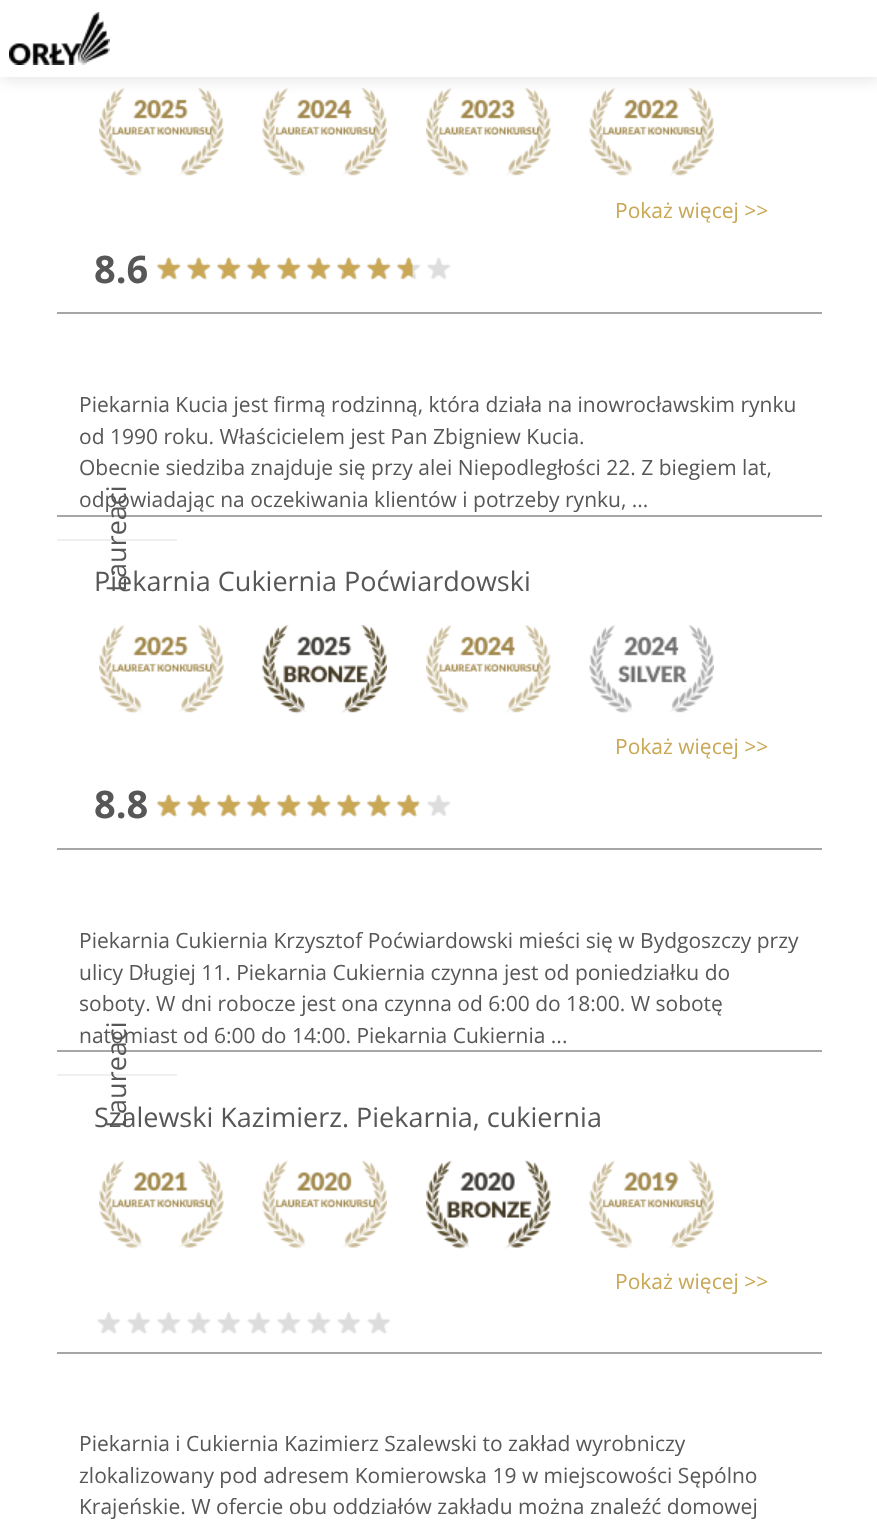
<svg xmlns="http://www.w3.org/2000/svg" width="877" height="1532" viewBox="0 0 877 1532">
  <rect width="100%" height="100%" fill="rgb(255,255,255)"/>
  <image x="99" y="88" width="125" height="89" href="pic2.png"/>
  <image x="262" y="88" width="125" height="89" href="pic3.png"/>
  <image x="426" y="88" width="125" height="89" href="pic4.png"/>
  <image x="589" y="88" width="125" height="89" href="pic5.png"/>
  <rect x="2" y="3" width="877" height="77" fill="rgba(0,0,0,0.1)" filter="blur(7.5px)"/>
  <rect x="0" y="0" width="877" height="77" fill="rgb(255,255,255)"/>
  <image x="9" y="12" width="101" height="53" href="pic1.png"/>
  <rect x="57" y="312" width="765" height="2" fill="rgb(166,166,166)"/>
  <text x="615" y="218" font-family="Open Sans" font-size="21" fill="rgb(201,167,84)">Pokaż więcej &gt;&gt;</text>
  <text x="94" y="283" font-family="Open Sans" font-size="38" font-weight="bold" fill="rgb(87,87,87)">8.6</text>
  <image x="157" y="257" width="294" height="23" href="pic6.png"/>
  <image x="157" y="257" width="256" height="24" href="pic7.png"/>
  <rect x="57" y="515" width="765" height="2" fill="rgb(166,166,166)"/>
  <g font-family="Open Sans" font-size="21" fill="rgb(87,87,87)">
    <text>
      <tspan x="79" y="412">Piekarnia Kucia jest firmą rodzinną, która działa na inowrocławskim rynku</tspan>
      <tspan x="79" y="444">od 1990 roku. Właścicielem jest Pan Zbigniew Kucia.</tspan>
      <tspan x="79" y="475">Obecnie siedziba znajduje się przy alei Niepodległości 22. Z biegiem lat,</tspan>
      <tspan x="79" y="507">odpowiadając na oczekiwania klientów i potrzeby rynku, ...</tspan>
    </text>
  </g>
  <path d="M58 539H177V541H58C57.5 541 57 540.5 57 540C57 539.5 57.5 539 58 539Z" fill="rgb(239,239,239)"/>
  <text x="126" y="592" transform="rotate(-90 126 592)" font-family="Open Sans" font-size="27" fill="rgb(87,87,87)">Laureaci</text>
  <rect x="57" y="848" width="765" height="2" fill="rgb(166,166,166)"/>
  <text x="94" y="591" font-family="Open Sans" font-size="27" fill="rgb(87,87,87)">Piekarnia Cukiernia Poćwiardowski</text>
  <image x="99" y="625" width="125" height="89" href="pic2.png"/>
  <image x="262" y="625" width="125" height="89" href="pic8.png"/>
  <image x="426" y="625" width="125" height="89" href="pic9.png"/>
  <image x="589" y="625" width="125" height="89" href="pic10.png"/>
  <text x="615" y="754" font-family="Open Sans" font-size="21" fill="rgb(201,167,84)">Pokaż więcej &gt;&gt;</text>
  <text x="94" y="818" font-family="Open Sans" font-size="38" font-weight="bold" fill="rgb(87,87,87)">8.8</text>
  <image x="157" y="794" width="294" height="23" href="pic11.png"/>
  <image x="157" y="794" width="262" height="24" href="pic12.png"/>
  <rect x="57" y="1050" width="765" height="2" fill="rgb(166,166,166)"/>
  <g font-family="Open Sans" font-size="21" fill="rgb(87,87,87)">
    <text>
      <tspan x="79" y="948">Piekarnia Cukiernia Krzysztof Poćwiardowski mieści się w Bydgoszczy przy</tspan>
      <tspan x="79" y="980">ulicy Długiej 11. Piekarnia Cukiernia czynna jest od poniedziałku do</tspan>
      <tspan x="79" y="1011">soboty. W dni robocze jest ona czynna od 6:00 do 18:00. W sobotę</tspan>
      <tspan x="79" y="1043">natomiast od 6:00 do 14:00. Piekarnia Cukiernia ...</tspan>
    </text>
  </g>
  <path d="M58 1074H177V1076H58C57.5 1076 57 1075.5 57 1075C57 1074.5 57.5 1074 58 1074Z" fill="rgb(239,239,239)"/>
  <text x="126" y="1128" transform="rotate(-90 126 1128)" font-family="Open Sans" font-size="27" fill="rgb(87,87,87)">Laureaci</text>
  <rect x="57" y="1352" width="765" height="2" fill="rgb(166,166,166)"/>
  <text x="94" y="1127" font-family="Open Sans" font-size="27" fill="rgb(87,87,87)">Szalewski Kazimierz. Piekarnia, cukiernia</text>
  <image x="99" y="1160" width="125" height="89" href="pic13.png"/>
  <image x="262" y="1160" width="125" height="89" href="pic14.png"/>
  <image x="426" y="1160" width="125" height="89" href="pic15.png"/>
  <image x="589" y="1160" width="125" height="89" href="pic16.png"/>
  <text x="615" y="1289" font-family="Open Sans" font-size="21" fill="rgb(201,167,84)">Pokaż więcej &gt;&gt;</text>
  <image x="97" y="1312" width="294" height="22" href="pic17.png"/>
  <g font-family="Open Sans" font-size="21" fill="rgb(87,87,87)">
    <text>
      <tspan x="79" y="1451">Piekarnia i Cukiernia Kazimierz Szalewski to zakład wyrobniczy</tspan>
      <tspan x="79" y="1483">zlokalizowany pod adresem Komierowska 19 w miejscowości Sępólno</tspan>
      <tspan x="79" y="1514">Krajeńskie. W ofercie obu oddziałów zakładu można znaleźć domowej</tspan>
    </text>
  </g>
</svg>
